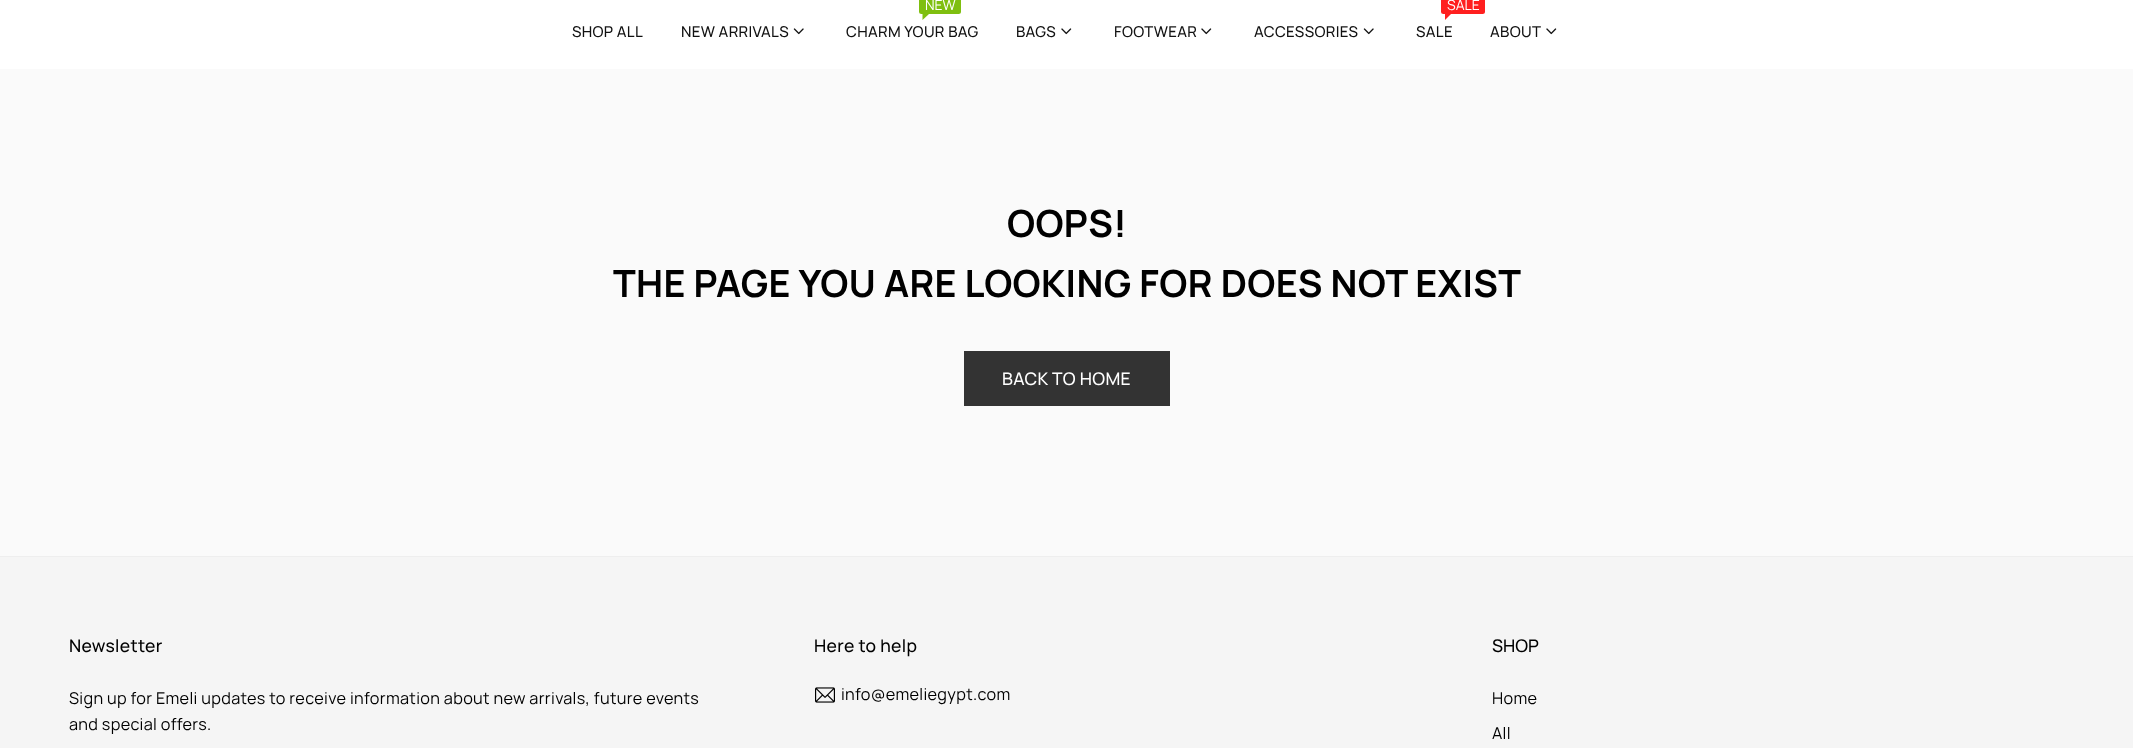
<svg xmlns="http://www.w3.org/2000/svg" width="2133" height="748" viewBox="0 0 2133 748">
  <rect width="100%" height="100%" fill="rgb(255,255,255)"/>
  <g font-family="Manrope" font-size="15" font-weight="500" letter-spacing="0.33" fill="rgb(17,17,17)">
    <text x="572" y="37">SHOP ALL</text>
    <text x="681" y="37">NEW ARRIVALS</text>
  </g>
  <image x="793" y="28" width="11" height="7" href="pic1.png"/>
  <rect x="919" y="-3" width="42" height="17" rx="2.5" fill="rgb(127,191,16)"/>
  <text x="925" y="10" font-family="Manrope" font-size="14" fill="rgb(255,255,255)">NEW</text>
  <path d="M922.5 20V7.5L929 14Z" fill="rgb(127,191,16)"/>
  <g font-family="Manrope" font-size="15" font-weight="500" letter-spacing="0.33" fill="rgb(17,17,17)">
    <text x="846" y="37">CHARM YOUR BAG</text>
    <text x="1016" y="37">BAGS</text>
  </g>
  <image x="1061" y="28" width="11" height="7" href="pic2.png"/>
  <text x="1114" y="37" font-family="Manrope" font-size="15" font-weight="500" letter-spacing="0.33" fill="rgb(17,17,17)">FOOTWEAR</text>
  <image x="1201" y="28" width="11" height="7" href="pic2.png"/>
  <text x="1254" y="37" font-family="Manrope" font-size="15" font-weight="500" letter-spacing="0.33" fill="rgb(17,17,17)">ACCESSORIES</text>
  <image x="1363" y="28" width="11" height="7" href="pic1.png"/>
  <rect x="1441" y="-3" width="44" height="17" rx="2.5" fill="rgb(255,31,31)"/>
  <text x="1447" y="10" font-family="Manrope" font-size="14" fill="rgb(255,255,255)">SALE</text>
  <path d="M1445 20V7.5L1451 14Z" fill="rgb(255,31,31)"/>
  <g font-family="Manrope" font-size="15" font-weight="500" letter-spacing="0.33" fill="rgb(17,17,17)">
    <text x="1416" y="37">SALE</text>
    <text x="1490" y="37">ABOUT</text>
  </g>
  <image x="1546" y="28" width="11" height="7" href="pic2.png"/>
  <rect x="0" y="69" width="2133" height="487" fill="rgb(250,250,250)"/>
  <g font-family="Manrope" font-size="37.5" font-weight="bold" letter-spacing="0.33" fill="rgb(0,0,0)">
    <text x="1007" y="237">OOPS!</text>
    <text x="613" y="297">THE PAGE YOU ARE LOOKING FOR DOES NOT EXIST</text>
  </g>
  <rect x="964" y="351" width="206" height="55" fill="rgb(51,51,51)"/>
  <text x="1002" y="385" font-family="Manrope" font-size="17.5" font-weight="500" letter-spacing="0.33" fill="rgb(255,255,255)">BACK TO HOME</text>
  <rect x="0" y="557" width="2133" height="191" fill="rgb(245,245,245)"/>
  <rect x="0" y="556" width="2133" height="1" fill="rgb(238,238,238)"/>
  <text x="69" y="652" font-family="Manrope" font-size="17.5" font-weight="500" letter-spacing="0.33" fill="rgb(0,0,0)">Newsletter</text>
  <g font-family="Manrope" font-size="16.25" letter-spacing="0.33" fill="rgb(0,0,0)">
    <text>
      <tspan x="69" y="704">Sign up for Emeli updates to receive information about new arrivals, future events</tspan>
      <tspan x="69" y="730">and special offers.</tspan>
    </text>
  </g>
  <text x="814" y="652" font-family="Manrope" font-size="17.5" font-weight="500" letter-spacing="0.33" fill="rgb(0,0,0)">Here to help</text>
  <image x="815" y="687" width="20" height="16" href="pic3.png"/>
  <text x="841" y="700" font-family="Manrope" font-size="16.25" letter-spacing="0.33" fill="rgb(0,0,0)">info@emeliegypt.com</text>
  <text x="1492" y="652" font-family="Manrope" font-size="17.5" font-weight="500" fill="rgb(0,0,0)">SHOP</text>
  <g font-family="Manrope" font-size="16.25" letter-spacing="0.33" fill="rgb(0,0,0)">
    <text x="1492" y="704">Home</text>
    <text x="1492" y="739">All</text>
  </g>
</svg>
